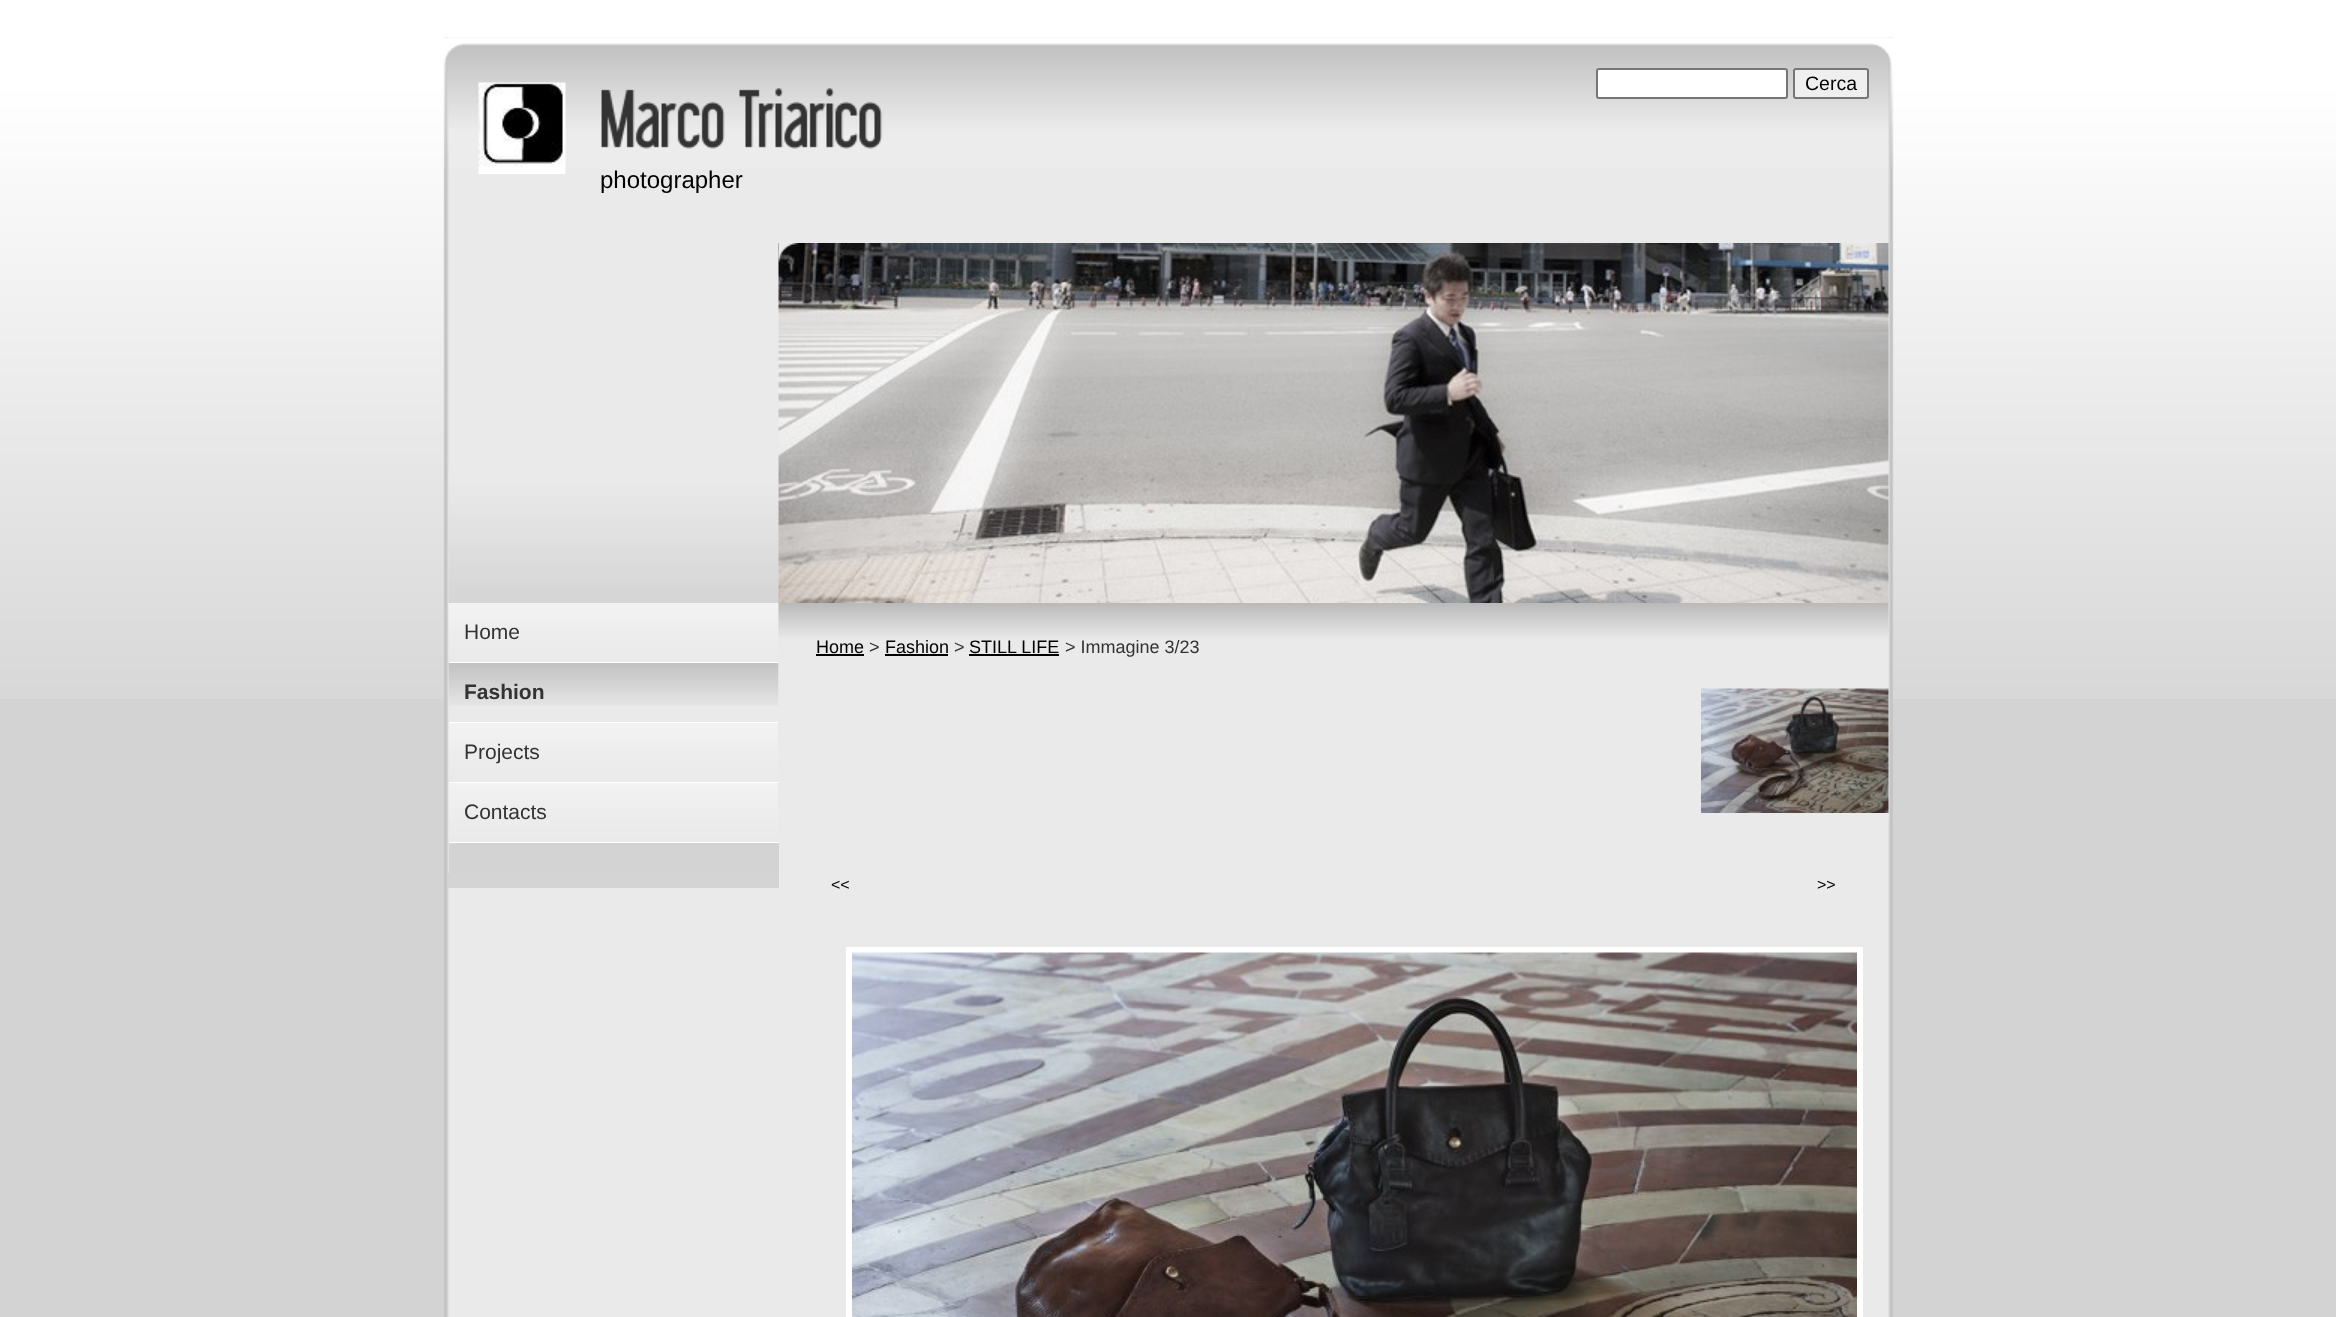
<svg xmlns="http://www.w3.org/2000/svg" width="2336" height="1317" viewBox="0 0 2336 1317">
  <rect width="100%" height="100%" fill="rgb(211,211,211)"/>
  <image x="0" y="0" width="2336" height="699" href="pic1.png"/>
  <image x="443" y="37" width="1451" height="1280" href="pic2.png"/>
  <image x="443" y="37" width="1451" height="132" href="pic3.png"/>
  <rect x="1597" y="69" width="190" height="29" rx="2" fill="rgb(255,255,255)" stroke="rgb(118,118,118)" stroke-width="2"/>
  <rect x="1794" y="69" width="74" height="29" rx="2" fill="rgb(239,239,239)" stroke="rgb(118,118,118)" stroke-width="2"/>
  <text x="1805" y="90" font-family="Liberation Sans" font-size="19.5" fill="rgb(0,0,0)">Cerca</text>
  <image x="448" y="471" width="1441" height="132" href="pic4.png"/>
  <image x="478" y="82" width="88" height="92" href="pic5.png"/>
  <image x="601" y="88" width="282" height="61" href="pic6.png"/>
  <text x="600" y="188" font-family="Liberation Sans" font-size="24" fill="rgb(0,0,0)">photographer</text>
  <image x="778" y="243" width="1111" height="360" href="pic7.png"/>
  <image x="778" y="243" width="21" height="20" href="pic8.png"/>
  <image x="448" y="603" width="330" height="58" href="pic9.png"/>
  <rect x="449" y="662" width="330" height="1" fill="rgb(255,255,255)"/>
  <text x="464" y="639" font-family="Liberation Sans" font-size="21" fill="rgb(51,51,51)">Home</text>
  <image x="448" y="663" width="1" height="58" href="pic10.png"/>
  <rect x="449" y="722" width="330" height="1" fill="rgb(255,255,255)"/>
  <image x="448" y="663" width="331" height="43" href="pic11.png"/>
  <text x="464" y="699" font-family="Liberation Sans" font-size="21" font-weight="bold" fill="rgb(51,51,51)">Fashion</text>
  <image x="448" y="723" width="330" height="58" href="pic9.png"/>
  <rect x="449" y="782" width="330" height="1" fill="rgb(255,255,255)"/>
  <text x="464" y="759" font-family="Liberation Sans" font-size="21" fill="rgb(51,51,51)">Projects</text>
  <image x="448" y="783" width="330" height="58" href="pic9.png"/>
  <rect x="449" y="842" width="330" height="1" fill="rgb(255,255,255)"/>
  <text x="464" y="819" font-family="Liberation Sans" font-size="21" fill="rgb(51,51,51)">Contacts</text>
  <rect x="449" y="843" width="330" height="30" fill="rgb(211,211,211)"/>
  <rect x="448" y="873" width="331" height="15" fill="rgb(212,212,212)"/>
  <image x="778" y="603" width="1111" height="217" href="pic12.png"/>
  <text x="816" y="653" font-family="Liberation Sans" font-size="18" fill="rgb(0,0,0)">Home</text>
  <rect x="816" y="654" width="48" height="2" fill="rgb(0,0,0)"/>
  <text x="869" y="653" font-family="Liberation Sans" font-size="18" fill="rgb(51,51,51)">&gt;</text>
  <text x="885" y="653" font-family="Liberation Sans" font-size="18" fill="rgb(0,0,0)">Fashion</text>
  <rect x="885" y="654" width="63" height="2" fill="rgb(0,0,0)"/>
  <text x="954" y="653" font-family="Liberation Sans" font-size="18" fill="rgb(51,51,51)">&gt;</text>
  <text x="969" y="653" font-family="Liberation Sans" font-size="18" fill="rgb(0,0,0)">STILL LIFE</text>
  <rect x="969" y="654" width="90" height="2" fill="rgb(0,0,0)"/>
  <text x="1065" y="653" font-family="Liberation Sans" font-size="18" fill="rgb(51,51,51)">&gt; Immagine 3/23</text>
  <image x="1701" y="688" width="188" height="125" href="pic13.png"/>
  <g font-family="Liberation Sans" font-size="16" fill="rgb(0,0,0)">
    <text x="831" y="890">&lt;&lt;</text>
    <text x="1817" y="890">&gt;&gt;</text>
  </g>
  <rect x="846" y="947" width="1017" height="370" fill="rgb(255,255,255)"/>
  <image x="852" y="952" width="1005" height="365" href="pic14.png"/>
</svg>
